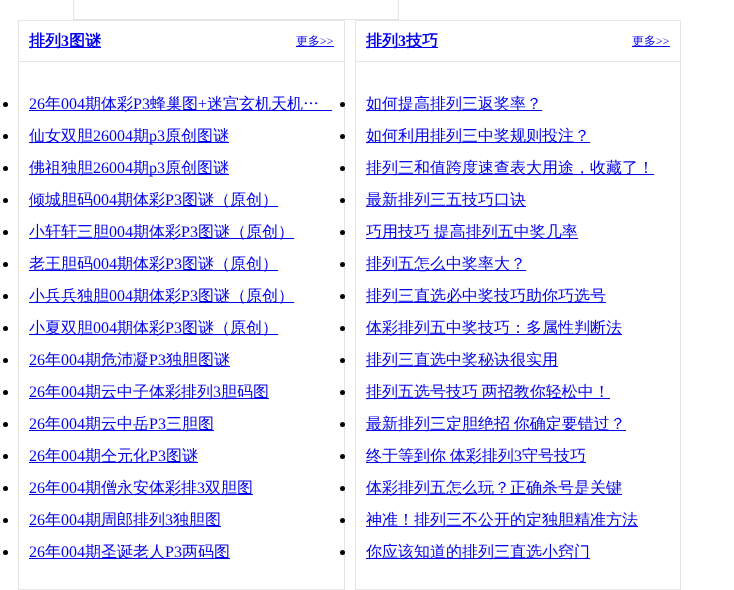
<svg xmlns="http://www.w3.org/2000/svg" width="734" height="590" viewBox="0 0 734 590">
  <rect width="100%" height="100%" fill="rgb(255,255,255)"/>
  <rect x="73.5" y="-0.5" width="325" height="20" fill="none" stroke="rgb(229,229,229)"/>
  <rect x="18.5" y="20.5" width="326" height="569" fill="none" stroke="rgb(229,229,229)"/>
  <rect x="19" y="61" width="325" height="1" fill="rgb(229,229,229)"/>
  <rect x="29" y="47" width="72" height="1" fill="rgb(0,0,238)"/>
  <text x="29" y="46" font-family="WenQuanYi Zen Hei" font-size="16" font-weight="bold" fill="rgb(0,0,238)">排列</text>
  <text x="61" y="46" font-family="Liberation Serif" font-size="16" font-weight="bold" fill="rgb(0,0,238)">3</text>
  <text x="69" y="46" font-family="WenQuanYi Zen Hei" font-size="16" font-weight="bold" fill="rgb(0,0,238)">图谜</text>
  <rect x="296" y="46" width="38" height="1" fill="rgb(0,0,238)"/>
  <text x="296" y="45" font-family="WenQuanYi Zen Hei" font-size="12" font-weight="500" fill="rgb(0,0,238)">更多</text>
  <text x="320" y="45" font-family="Liberation Serif" font-size="12" fill="rgb(0,0,238)">&gt;&gt;</text>
  <circle cx="5.5" cy="104.5" r="2.5" fill="rgb(0,0,0)"/>
  <text x="29" y="109" font-family="Liberation Serif" font-size="16" fill="rgb(0,0,238)">26</text>
  <rect x="29" y="110" width="303" height="1" fill="rgb(0,0,238)"/>
  <text x="45" y="109" font-family="WenQuanYi Zen Hei" font-size="16" font-weight="500" fill="rgb(0,0,238)">年</text>
  <text x="61" y="109" font-family="Liberation Serif" font-size="16" fill="rgb(0,0,238)">004</text>
  <text x="85" y="109" font-family="WenQuanYi Zen Hei" font-size="16" font-weight="500" fill="rgb(0,0,238)">期体彩</text>
  <text x="133" y="109" font-family="Liberation Serif" font-size="16" fill="rgb(0,0,238)">P3</text>
  <text x="150" y="109" font-family="WenQuanYi Zen Hei" font-size="16" font-weight="500" fill="rgb(0,0,238)">蜂巢图</text>
  <text x="198" y="109" font-family="Liberation Serif" font-size="16" fill="rgb(0,0,238)">+</text>
  <text x="207" y="109" font-family="WenQuanYi Zen Hei" font-size="16" font-weight="500" fill="rgb(0,0,238)">迷宫玄机天机…</text>
  <circle cx="5.5" cy="136.5" r="2.5" fill="rgb(0,0,0)"/>
  <rect x="29" y="142" width="200" height="1" fill="rgb(0,0,238)"/>
  <text x="29" y="141" font-family="WenQuanYi Zen Hei" font-size="16" font-weight="500" fill="rgb(0,0,238)">仙女双胆</text>
  <text x="93" y="141" font-family="Liberation Serif" font-size="16" fill="rgb(0,0,238)">26004</text>
  <text x="133" y="141" font-family="WenQuanYi Zen Hei" font-size="16" font-weight="500" fill="rgb(0,0,238)">期</text>
  <text x="149" y="141" font-family="Liberation Serif" font-size="16" fill="rgb(0,0,238)">p3</text>
  <text x="165" y="141" font-family="WenQuanYi Zen Hei" font-size="16" font-weight="500" fill="rgb(0,0,238)">原创图谜</text>
  <circle cx="5.5" cy="168.5" r="2.5" fill="rgb(0,0,0)"/>
  <rect x="29" y="174" width="200" height="1" fill="rgb(0,0,238)"/>
  <text x="29" y="173" font-family="WenQuanYi Zen Hei" font-size="16" font-weight="500" fill="rgb(0,0,238)">佛祖独胆</text>
  <text x="93" y="173" font-family="Liberation Serif" font-size="16" fill="rgb(0,0,238)">26004</text>
  <text x="133" y="173" font-family="WenQuanYi Zen Hei" font-size="16" font-weight="500" fill="rgb(0,0,238)">期</text>
  <text x="149" y="173" font-family="Liberation Serif" font-size="16" fill="rgb(0,0,238)">p3</text>
  <text x="165" y="173" font-family="WenQuanYi Zen Hei" font-size="16" font-weight="500" fill="rgb(0,0,238)">原创图谜</text>
  <circle cx="5.5" cy="200.5" r="2.5" fill="rgb(0,0,0)"/>
  <rect x="29" y="206" width="249" height="1" fill="rgb(0,0,238)"/>
  <text x="29" y="205" font-family="WenQuanYi Zen Hei" font-size="16" font-weight="500" fill="rgb(0,0,238)">倾城胆码</text>
  <text x="93" y="205" font-family="Liberation Serif" font-size="16" fill="rgb(0,0,238)">004</text>
  <text x="117" y="205" font-family="WenQuanYi Zen Hei" font-size="16" font-weight="500" fill="rgb(0,0,238)">期体彩</text>
  <text x="165" y="205" font-family="Liberation Serif" font-size="16" fill="rgb(0,0,238)">P3</text>
  <text x="182" y="205" font-family="WenQuanYi Zen Hei" font-size="16" font-weight="500" fill="rgb(0,0,238)">图谜（原创）</text>
  <circle cx="5.5" cy="232.5" r="2.5" fill="rgb(0,0,0)"/>
  <rect x="29" y="238" width="265" height="1" fill="rgb(0,0,238)"/>
  <text x="29" y="237" font-family="WenQuanYi Zen Hei" font-size="16" font-weight="500" fill="rgb(0,0,238)">小轩轩三胆</text>
  <text x="109" y="237" font-family="Liberation Serif" font-size="16" fill="rgb(0,0,238)">004</text>
  <text x="133" y="237" font-family="WenQuanYi Zen Hei" font-size="16" font-weight="500" fill="rgb(0,0,238)">期体彩</text>
  <text x="181" y="237" font-family="Liberation Serif" font-size="16" fill="rgb(0,0,238)">P3</text>
  <text x="198" y="237" font-family="WenQuanYi Zen Hei" font-size="16" font-weight="500" fill="rgb(0,0,238)">图谜（原创）</text>
  <circle cx="5.5" cy="264.5" r="2.5" fill="rgb(0,0,0)"/>
  <rect x="29" y="270" width="249" height="1" fill="rgb(0,0,238)"/>
  <text x="29" y="269" font-family="WenQuanYi Zen Hei" font-size="16" font-weight="500" fill="rgb(0,0,238)">老王胆码</text>
  <text x="93" y="269" font-family="Liberation Serif" font-size="16" fill="rgb(0,0,238)">004</text>
  <text x="117" y="269" font-family="WenQuanYi Zen Hei" font-size="16" font-weight="500" fill="rgb(0,0,238)">期体彩</text>
  <text x="165" y="269" font-family="Liberation Serif" font-size="16" fill="rgb(0,0,238)">P3</text>
  <text x="182" y="269" font-family="WenQuanYi Zen Hei" font-size="16" font-weight="500" fill="rgb(0,0,238)">图谜（原创）</text>
  <circle cx="5.5" cy="296.5" r="2.5" fill="rgb(0,0,0)"/>
  <rect x="29" y="302" width="265" height="1" fill="rgb(0,0,238)"/>
  <text x="29" y="301" font-family="WenQuanYi Zen Hei" font-size="16" font-weight="500" fill="rgb(0,0,238)">小兵兵独胆</text>
  <text x="109" y="301" font-family="Liberation Serif" font-size="16" fill="rgb(0,0,238)">004</text>
  <text x="133" y="301" font-family="WenQuanYi Zen Hei" font-size="16" font-weight="500" fill="rgb(0,0,238)">期体彩</text>
  <text x="181" y="301" font-family="Liberation Serif" font-size="16" fill="rgb(0,0,238)">P3</text>
  <text x="198" y="301" font-family="WenQuanYi Zen Hei" font-size="16" font-weight="500" fill="rgb(0,0,238)">图谜（原创）</text>
  <circle cx="5.5" cy="328.5" r="2.5" fill="rgb(0,0,0)"/>
  <rect x="29" y="334" width="249" height="1" fill="rgb(0,0,238)"/>
  <text x="29" y="333" font-family="WenQuanYi Zen Hei" font-size="16" font-weight="500" fill="rgb(0,0,238)">小夏双胆</text>
  <text x="93" y="333" font-family="Liberation Serif" font-size="16" fill="rgb(0,0,238)">004</text>
  <text x="117" y="333" font-family="WenQuanYi Zen Hei" font-size="16" font-weight="500" fill="rgb(0,0,238)">期体彩</text>
  <text x="165" y="333" font-family="Liberation Serif" font-size="16" fill="rgb(0,0,238)">P3</text>
  <text x="182" y="333" font-family="WenQuanYi Zen Hei" font-size="16" font-weight="500" fill="rgb(0,0,238)">图谜（原创）</text>
  <circle cx="5.5" cy="360.5" r="2.5" fill="rgb(0,0,0)"/>
  <text x="29" y="365" font-family="Liberation Serif" font-size="16" fill="rgb(0,0,238)">26</text>
  <rect x="29" y="366" width="201" height="1" fill="rgb(0,0,238)"/>
  <text x="45" y="365" font-family="WenQuanYi Zen Hei" font-size="16" font-weight="500" fill="rgb(0,0,238)">年</text>
  <text x="61" y="365" font-family="Liberation Serif" font-size="16" fill="rgb(0,0,238)">004</text>
  <text x="85" y="365" font-family="WenQuanYi Zen Hei" font-size="16" font-weight="500" fill="rgb(0,0,238)">期危沛凝</text>
  <text x="149" y="365" font-family="Liberation Serif" font-size="16" fill="rgb(0,0,238)">P3</text>
  <text x="166" y="365" font-family="WenQuanYi Zen Hei" font-size="16" font-weight="500" fill="rgb(0,0,238)">独胆图谜</text>
  <circle cx="5.5" cy="392.5" r="2.5" fill="rgb(0,0,0)"/>
  <text x="29" y="397" font-family="Liberation Serif" font-size="16" fill="rgb(0,0,238)">26</text>
  <rect x="29" y="398" width="240" height="1" fill="rgb(0,0,238)"/>
  <text x="45" y="397" font-family="WenQuanYi Zen Hei" font-size="16" font-weight="500" fill="rgb(0,0,238)">年</text>
  <text x="61" y="397" font-family="Liberation Serif" font-size="16" fill="rgb(0,0,238)">004</text>
  <text x="85" y="397" font-family="WenQuanYi Zen Hei" font-size="16" font-weight="500" fill="rgb(0,0,238)">期云中子体彩排列</text>
  <text x="213" y="397" font-family="Liberation Serif" font-size="16" fill="rgb(0,0,238)">3</text>
  <text x="221" y="397" font-family="WenQuanYi Zen Hei" font-size="16" font-weight="500" fill="rgb(0,0,238)">胆码图</text>
  <circle cx="5.5" cy="424.5" r="2.5" fill="rgb(0,0,0)"/>
  <text x="29" y="429" font-family="Liberation Serif" font-size="16" fill="rgb(0,0,238)">26</text>
  <rect x="29" y="430" width="185" height="1" fill="rgb(0,0,238)"/>
  <text x="45" y="429" font-family="WenQuanYi Zen Hei" font-size="16" font-weight="500" fill="rgb(0,0,238)">年</text>
  <text x="61" y="429" font-family="Liberation Serif" font-size="16" fill="rgb(0,0,238)">004</text>
  <text x="85" y="429" font-family="WenQuanYi Zen Hei" font-size="16" font-weight="500" fill="rgb(0,0,238)">期云中岳</text>
  <text x="149" y="429" font-family="Liberation Serif" font-size="16" fill="rgb(0,0,238)">P3</text>
  <text x="166" y="429" font-family="WenQuanYi Zen Hei" font-size="16" font-weight="500" fill="rgb(0,0,238)">三胆图</text>
  <circle cx="5.5" cy="456.5" r="2.5" fill="rgb(0,0,0)"/>
  <text x="29" y="461" font-family="Liberation Serif" font-size="16" fill="rgb(0,0,238)">26</text>
  <rect x="29" y="462" width="169" height="1" fill="rgb(0,0,238)"/>
  <text x="45" y="461" font-family="WenQuanYi Zen Hei" font-size="16" font-weight="500" fill="rgb(0,0,238)">年</text>
  <text x="61" y="461" font-family="Liberation Serif" font-size="16" fill="rgb(0,0,238)">004</text>
  <text x="85" y="461" font-family="WenQuanYi Zen Hei" font-size="16" font-weight="500" fill="rgb(0,0,238)">期仝元化</text>
  <text x="149" y="461" font-family="Liberation Serif" font-size="16" fill="rgb(0,0,238)">P3</text>
  <text x="166" y="461" font-family="WenQuanYi Zen Hei" font-size="16" font-weight="500" fill="rgb(0,0,238)">图谜</text>
  <circle cx="5.5" cy="488.5" r="2.5" fill="rgb(0,0,0)"/>
  <text x="29" y="493" font-family="Liberation Serif" font-size="16" fill="rgb(0,0,238)">26</text>
  <rect x="29" y="494" width="224" height="1" fill="rgb(0,0,238)"/>
  <text x="45" y="493" font-family="WenQuanYi Zen Hei" font-size="16" font-weight="500" fill="rgb(0,0,238)">年</text>
  <text x="61" y="493" font-family="Liberation Serif" font-size="16" fill="rgb(0,0,238)">004</text>
  <text x="85" y="493" font-family="WenQuanYi Zen Hei" font-size="16" font-weight="500" fill="rgb(0,0,238)">期僧永安体彩排</text>
  <text x="197" y="493" font-family="Liberation Serif" font-size="16" fill="rgb(0,0,238)">3</text>
  <text x="205" y="493" font-family="WenQuanYi Zen Hei" font-size="16" font-weight="500" fill="rgb(0,0,238)">双胆图</text>
  <circle cx="5.5" cy="520.5" r="2.5" fill="rgb(0,0,0)"/>
  <text x="29" y="525" font-family="Liberation Serif" font-size="16" fill="rgb(0,0,238)">26</text>
  <rect x="29" y="526" width="192" height="1" fill="rgb(0,0,238)"/>
  <text x="45" y="525" font-family="WenQuanYi Zen Hei" font-size="16" font-weight="500" fill="rgb(0,0,238)">年</text>
  <text x="61" y="525" font-family="Liberation Serif" font-size="16" fill="rgb(0,0,238)">004</text>
  <text x="85" y="525" font-family="WenQuanYi Zen Hei" font-size="16" font-weight="500" fill="rgb(0,0,238)">期周郎排列</text>
  <text x="165" y="525" font-family="Liberation Serif" font-size="16" fill="rgb(0,0,238)">3</text>
  <text x="173" y="525" font-family="WenQuanYi Zen Hei" font-size="16" font-weight="500" fill="rgb(0,0,238)">独胆图</text>
  <circle cx="5.5" cy="552.5" r="2.5" fill="rgb(0,0,0)"/>
  <text x="29" y="557" font-family="Liberation Serif" font-size="16" fill="rgb(0,0,238)">26</text>
  <rect x="29" y="558" width="201" height="1" fill="rgb(0,0,238)"/>
  <text x="45" y="557" font-family="WenQuanYi Zen Hei" font-size="16" font-weight="500" fill="rgb(0,0,238)">年</text>
  <text x="61" y="557" font-family="Liberation Serif" font-size="16" fill="rgb(0,0,238)">004</text>
  <text x="85" y="557" font-family="WenQuanYi Zen Hei" font-size="16" font-weight="500" fill="rgb(0,0,238)">期圣诞老人</text>
  <text x="165" y="557" font-family="Liberation Serif" font-size="16" fill="rgb(0,0,238)">P3</text>
  <text x="182" y="557" font-family="WenQuanYi Zen Hei" font-size="16" font-weight="500" fill="rgb(0,0,238)">两码图</text>
  <rect x="355.5" y="20.5" width="325" height="569" fill="none" stroke="rgb(229,229,229)"/>
  <rect x="356" y="61" width="324" height="1" fill="rgb(229,229,229)"/>
  <rect x="366" y="47" width="72" height="1" fill="rgb(0,0,238)"/>
  <text x="366" y="46" font-family="WenQuanYi Zen Hei" font-size="16" font-weight="bold" fill="rgb(0,0,238)">排列</text>
  <text x="398" y="46" font-family="Liberation Serif" font-size="16" font-weight="bold" fill="rgb(0,0,238)">3</text>
  <text x="406" y="46" font-family="WenQuanYi Zen Hei" font-size="16" font-weight="bold" fill="rgb(0,0,238)">技巧</text>
  <rect x="632" y="46" width="38" height="1" fill="rgb(0,0,238)"/>
  <text x="632" y="45" font-family="WenQuanYi Zen Hei" font-size="12" font-weight="500" fill="rgb(0,0,238)">更多</text>
  <text x="656" y="45" font-family="Liberation Serif" font-size="12" fill="rgb(0,0,238)">&gt;&gt;</text>
  <circle cx="342.5" cy="104.5" r="2.5" fill="rgb(0,0,0)"/>
  <rect x="366" y="110" width="176" height="1" fill="rgb(0,0,238)"/>
  <text x="366" y="109" font-family="WenQuanYi Zen Hei" font-size="16" font-weight="500" fill="rgb(0,0,238)">如何提高排列三返奖率？</text>
  <circle cx="342.5" cy="136.5" r="2.5" fill="rgb(0,0,0)"/>
  <rect x="366" y="142" width="224" height="1" fill="rgb(0,0,238)"/>
  <text x="366" y="141" font-family="WenQuanYi Zen Hei" font-size="16" font-weight="500" fill="rgb(0,0,238)">如何利用排列三中奖规则投注？</text>
  <circle cx="342.5" cy="168.5" r="2.5" fill="rgb(0,0,0)"/>
  <rect x="366" y="174" width="288" height="1" fill="rgb(0,0,238)"/>
  <text x="366" y="173" font-family="WenQuanYi Zen Hei" font-size="16" font-weight="500" fill="rgb(0,0,238)">排列三和值跨度速查表大用途，收藏了！</text>
  <circle cx="342.5" cy="200.5" r="2.5" fill="rgb(0,0,0)"/>
  <rect x="366" y="206" width="160" height="1" fill="rgb(0,0,238)"/>
  <text x="366" y="205" font-family="WenQuanYi Zen Hei" font-size="16" font-weight="500" fill="rgb(0,0,238)">最新排列三五技巧口诀</text>
  <circle cx="342.5" cy="232.5" r="2.5" fill="rgb(0,0,0)"/>
  <rect x="366" y="238" width="212" height="1" fill="rgb(0,0,238)"/>
  <text x="366" y="237" word-spacing="-1" font-family="WenQuanYi Zen Hei" font-size="16" font-weight="500" fill="rgb(0,0,238)">巧用技巧 提高排列五中奖几率</text>
  <circle cx="342.5" cy="264.5" r="2.5" fill="rgb(0,0,0)"/>
  <rect x="366" y="270" width="160" height="1" fill="rgb(0,0,238)"/>
  <text x="366" y="269" font-family="WenQuanYi Zen Hei" font-size="16" font-weight="500" fill="rgb(0,0,238)">排列五怎么中奖率大？</text>
  <circle cx="342.5" cy="296.5" r="2.5" fill="rgb(0,0,0)"/>
  <rect x="366" y="302" width="240" height="1" fill="rgb(0,0,238)"/>
  <text x="366" y="301" font-family="WenQuanYi Zen Hei" font-size="16" font-weight="500" fill="rgb(0,0,238)">排列三直选必中奖技巧助你巧选号</text>
  <circle cx="342.5" cy="328.5" r="2.5" fill="rgb(0,0,0)"/>
  <rect x="366" y="334" width="256" height="1" fill="rgb(0,0,238)"/>
  <text x="366" y="333" font-family="WenQuanYi Zen Hei" font-size="16" font-weight="500" fill="rgb(0,0,238)">体彩排列五中奖技巧：多属性判断法</text>
  <circle cx="342.5" cy="360.5" r="2.5" fill="rgb(0,0,0)"/>
  <rect x="366" y="366" width="192" height="1" fill="rgb(0,0,238)"/>
  <text x="366" y="365" font-family="WenQuanYi Zen Hei" font-size="16" font-weight="500" fill="rgb(0,0,238)">排列三直选中奖秘诀很实用</text>
  <circle cx="342.5" cy="392.5" r="2.5" fill="rgb(0,0,0)"/>
  <rect x="366" y="398" width="244" height="1" fill="rgb(0,0,238)"/>
  <text x="366" y="397" word-spacing="-1" font-family="WenQuanYi Zen Hei" font-size="16" font-weight="500" fill="rgb(0,0,238)">排列五选号技巧 两招教你轻松中！</text>
  <circle cx="342.5" cy="424.5" r="2.5" fill="rgb(0,0,0)"/>
  <rect x="366" y="430" width="260" height="1" fill="rgb(0,0,238)"/>
  <text x="366" y="429" word-spacing="-1" font-family="WenQuanYi Zen Hei" font-size="16" font-weight="500" fill="rgb(0,0,238)">最新排列三定胆绝招 你确定要错过？</text>
  <circle cx="342.5" cy="456.5" r="2.5" fill="rgb(0,0,0)"/>
  <rect x="366" y="462" width="220" height="1" fill="rgb(0,0,238)"/>
  <text x="366" y="461" word-spacing="-1" font-family="WenQuanYi Zen Hei" font-size="16" font-weight="500" fill="rgb(0,0,238)">终于等到你 体彩排列</text>
  <text x="514" y="461" font-family="Liberation Serif" font-size="16" fill="rgb(0,0,238)">3</text>
  <text x="522" y="461" font-family="WenQuanYi Zen Hei" font-size="16" font-weight="500" fill="rgb(0,0,238)">守号技巧</text>
  <circle cx="342.5" cy="488.5" r="2.5" fill="rgb(0,0,0)"/>
  <rect x="366" y="494" width="256" height="1" fill="rgb(0,0,238)"/>
  <text x="366" y="493" font-family="WenQuanYi Zen Hei" font-size="16" font-weight="500" fill="rgb(0,0,238)">体彩排列五怎么玩？正确杀号是关键</text>
  <circle cx="342.5" cy="520.5" r="2.5" fill="rgb(0,0,0)"/>
  <rect x="366" y="526" width="272" height="1" fill="rgb(0,0,238)"/>
  <text x="366" y="525" font-family="WenQuanYi Zen Hei" font-size="16" font-weight="500" fill="rgb(0,0,238)">神准！排列三不公开的定独胆精准方法</text>
  <circle cx="342.5" cy="552.5" r="2.5" fill="rgb(0,0,0)"/>
  <rect x="366" y="558" width="224" height="1" fill="rgb(0,0,238)"/>
  <text x="366" y="557" font-family="WenQuanYi Zen Hei" font-size="16" font-weight="500" fill="rgb(0,0,238)">你应该知道的排列三直选小窍门</text>
</svg>
